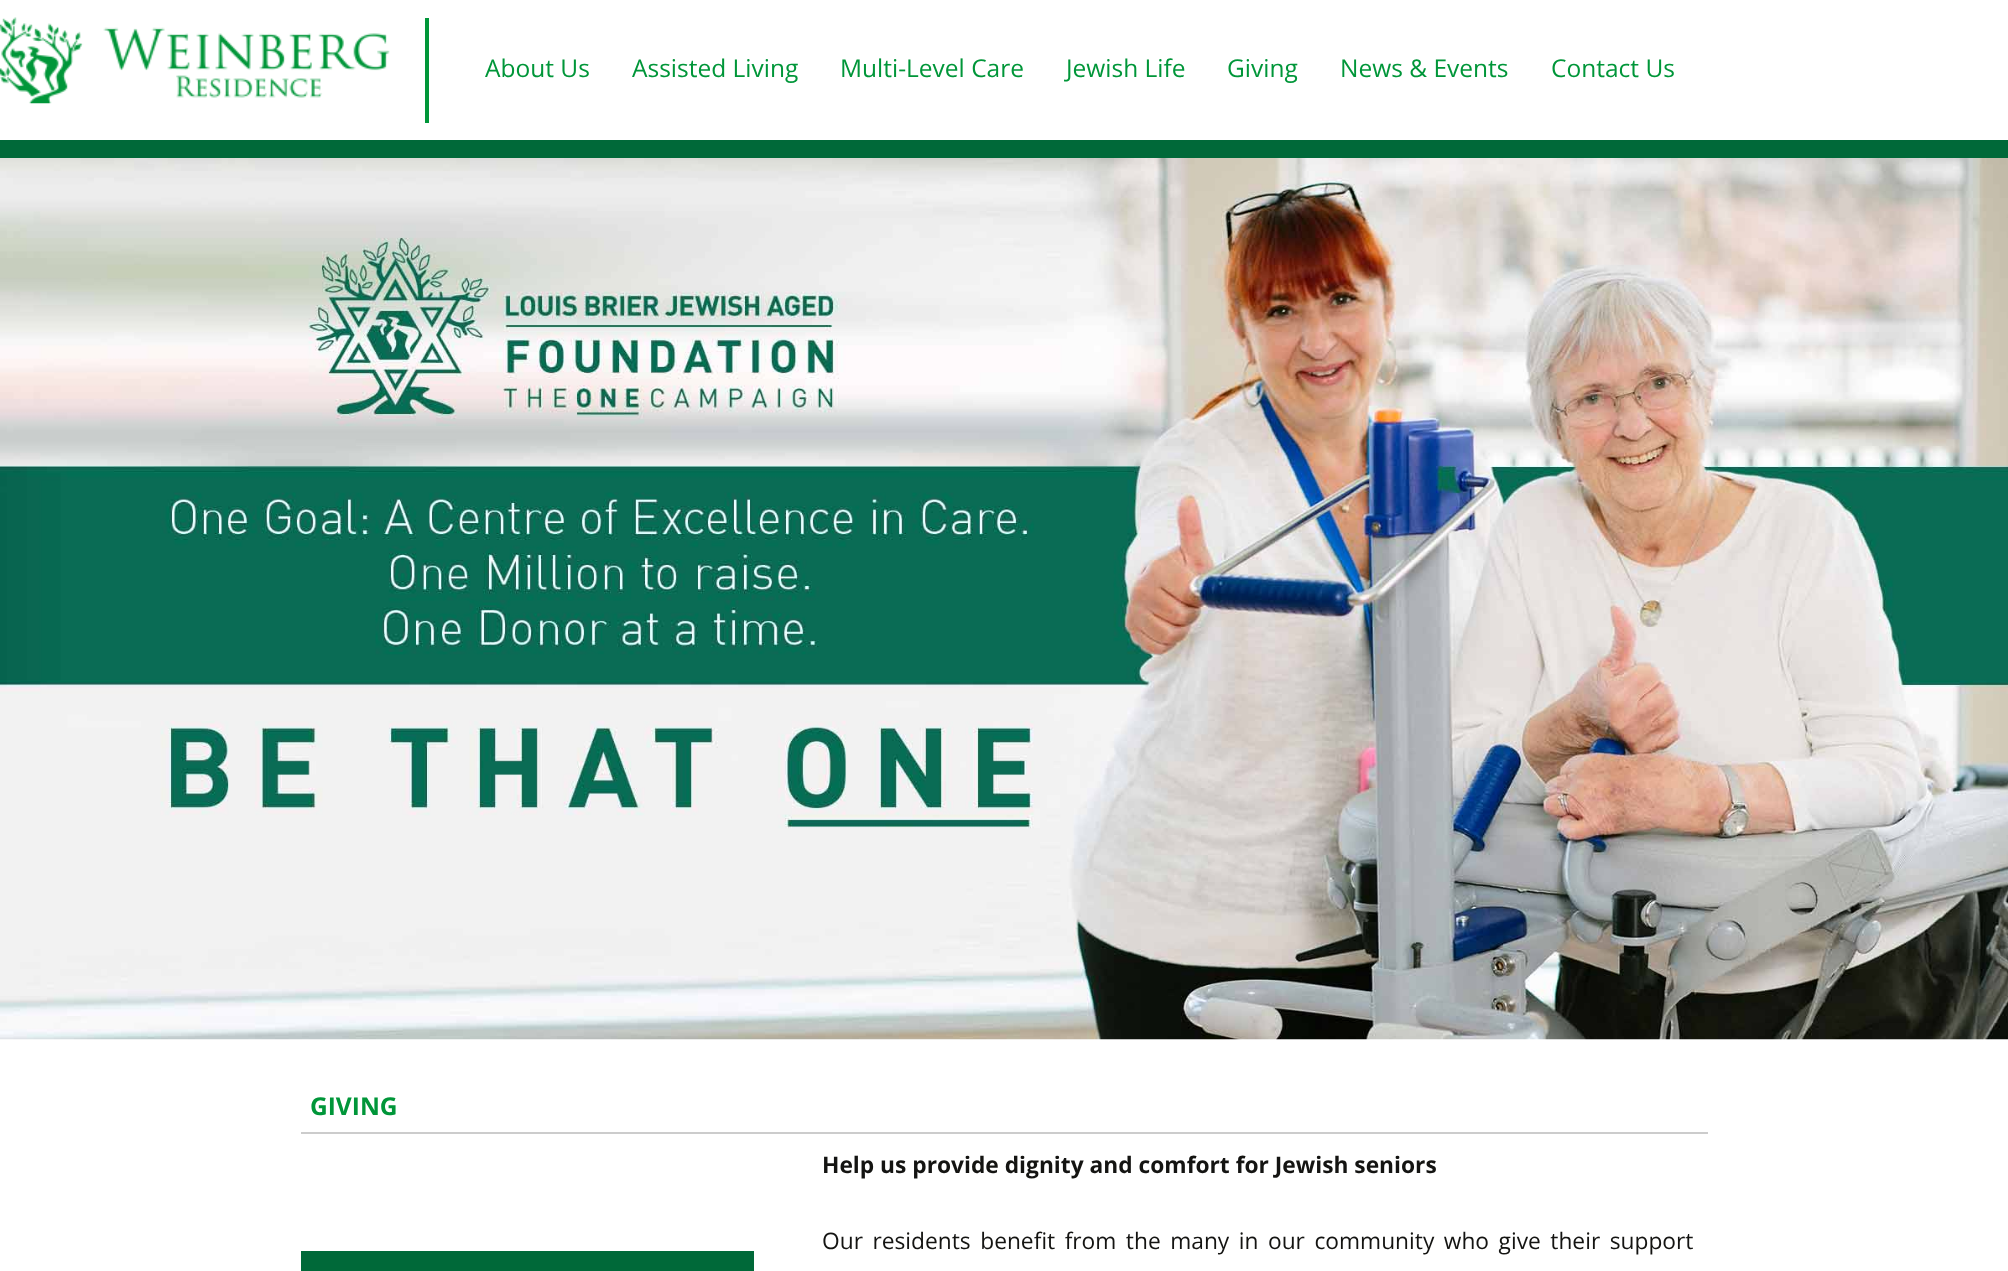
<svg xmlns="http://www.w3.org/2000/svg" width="2008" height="1271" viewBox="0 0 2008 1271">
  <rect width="100%" height="100%" fill="rgb(255,255,255)"/>
  <rect x="0" y="140" width="2008" height="18" fill="rgb(0,105,57)"/>
  <image x="0" y="17" width="390" height="87" href="pic1.png"/>
  <rect x="425" y="18" width="4" height="105" fill="rgb(0,150,57)"/>
  <g font-family="Open Sans" font-size="24.5" fill="rgb(0,150,57)">
    <text x="485" y="77">About Us</text>
    <text x="632" y="77">Assisted Living</text>
    <text x="840" y="77">Multi-Level Care</text>
    <text x="1066" y="77">Jewish Life</text>
    <text x="1227" y="77">Giving</text>
    <text x="1340" y="77">News &amp; Events</text>
    <text x="1551" y="77">Contact Us</text>
  </g>
  <image x="0" y="158" width="2008" height="882" href="pic2.png"/>
  <rect x="301" y="1132" width="1407" height="2" fill="rgb(204,204,204)"/>
  <text x="310" y="1115" font-family="Open Sans" font-size="24.5" font-weight="bold" fill="rgb(0,150,57)">GIVING</text>
  <text x="822" y="1173" font-family="Open Sans" font-size="22.75" font-weight="bold" fill="rgb(20,20,18)">Help us provide dignity and comfort for Jewish seniors</text>
  <text x="822" y="1249" word-spacing="3.6" font-family="Open Sans" font-size="22.75" fill="rgb(20,20,18)">Our residents benefit from the many in our community who give their support</text>
  <rect x="301" y="1251" width="453" height="20" fill="rgb(0,105,57)"/>
</svg>
